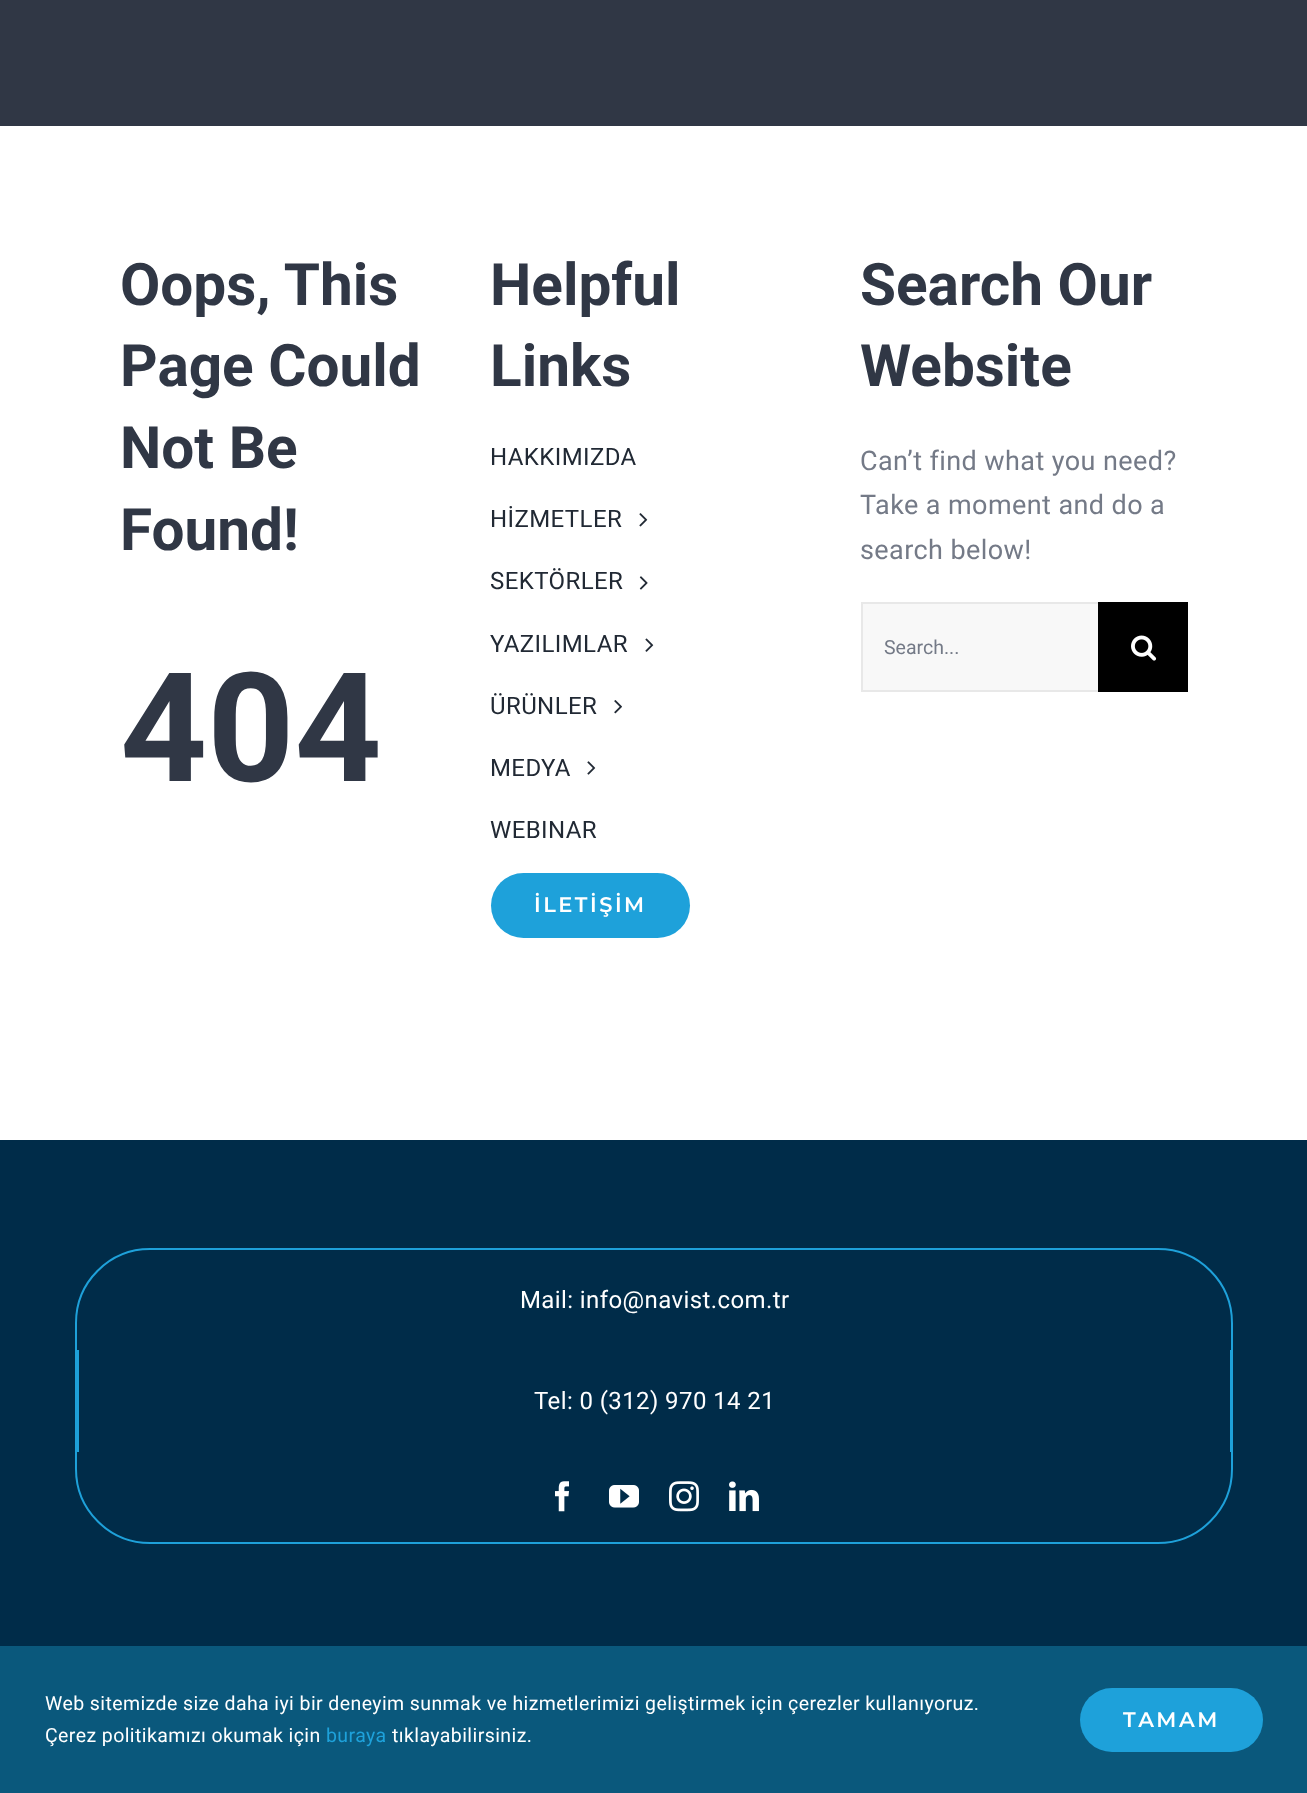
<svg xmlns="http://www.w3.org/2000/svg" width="1307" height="1793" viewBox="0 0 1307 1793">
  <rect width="100%" height="100%" fill="rgb(255,255,255)"/>
  <rect x="0" y="0" width="1307" height="126" fill="rgb(48,55,69)"/>
  <g font-family="Roboto" font-size="58.5" font-weight="bold" fill="rgb(48,55,69)">
    <text>
      <tspan x="120" y="305">Oops, This</tspan>
      <tspan x="120" y="386">Page Could</tspan>
      <tspan x="120" y="468">Not Be</tspan>
      <tspan x="120" y="550">Found!</tspan>
    </text>
  </g>
  <text x="120" y="781" font-family="Roboto" font-size="152" font-weight="bold" fill="rgb(48,55,69)">404</text>
  <g font-family="Roboto" font-size="58.5" font-weight="bold" fill="rgb(48,55,69)">
    <text>
      <tspan x="490" y="305">Helpful</tspan>
      <tspan x="490" y="386">Links</tspan>
    </text>
  </g>
  <g font-family="Roboto" font-size="24" letter-spacing="0.4" fill="rgb(33,41,52)">
    <text x="490" y="465">HAKKIMIZDA</text>
    <text x="490" y="527">HİZMETLER</text>
  </g>
  <image x="639" y="513" width="9" height="14" href="pic1.png"/>
  <text x="490" y="589" font-family="Roboto" font-size="24" letter-spacing="0.4" fill="rgb(33,41,52)">SEKTÖRLER</text>
  <image x="639" y="576" width="9" height="14" href="pic2.png"/>
  <text x="490" y="652" font-family="Roboto" font-size="24" letter-spacing="0.4" fill="rgb(33,41,52)">YAZILIMLAR</text>
  <image x="645" y="638" width="9" height="14" href="pic3.png"/>
  <text x="490" y="714" font-family="Roboto" font-size="24" letter-spacing="0.4" fill="rgb(33,41,52)">ÜRÜNLER</text>
  <image x="614" y="700" width="8" height="14" href="pic4.png"/>
  <text x="490" y="776" font-family="Roboto" font-size="24" letter-spacing="0.4" fill="rgb(33,41,52)">MEDYA</text>
  <image x="587" y="761" width="9" height="14" href="pic5.png"/>
  <text x="490" y="838" font-family="Roboto" font-size="24" letter-spacing="0.4" fill="rgb(33,41,52)">WEBINAR</text>
  <rect x="491" y="873" width="199" height="65" rx="32.5" fill="rgb(30,161,218)"/>
  <text x="534" y="912" font-family="Montserrat" font-size="21" font-weight="100" letter-spacing="2.5" fill="rgb(255,255,255)">İLETİŞİM</text>
  <g font-family="Roboto" font-size="58.5" font-weight="bold" fill="rgb(48,55,69)">
    <text>
      <tspan x="860" y="305">Search Our</tspan>
      <tspan x="860" y="386">Website</tspan>
    </text>
  </g>
  <g font-family="Roboto" font-size="27" letter-spacing="0.41" fill="rgb(116,122,135)">
    <text>
      <tspan x="860" y="470">Can’t find what you need?</tspan>
      <tspan x="860" y="514">Take a moment and do a</tspan>
      <tspan x="860" y="559">search below!</tspan>
    </text>
  </g>
  <rect x="863" y="604" width="235" height="86" fill="rgb(248,248,248)"/>
  <rect x="861" y="602" width="237" height="2" fill="rgb(232,232,232)"/>
  <rect x="861" y="690" width="237" height="2" fill="rgb(232,232,232)"/>
  <rect x="861" y="602" width="2" height="90" fill="rgb(232,232,232)"/>
  <text x="884" y="654" font-family="Roboto" font-size="19.5" fill="rgb(116,122,135)">Search...</text>
  <rect x="1098" y="602" width="90" height="90" fill="rgb(0,0,0)"/>
  <image x="1131" y="635" width="26" height="26" href="pic6.png"/>
  <rect x="0" y="1140" width="1307" height="506" fill="rgb(0,44,73)"/>
  <rect x="76" y="1249" width="1156" height="294" rx="74" fill="none" stroke="rgb(30,161,218)" stroke-width="2"/>
  <text x="520" y="1308" font-family="Roboto" font-size="24" letter-spacing="0.4" fill="rgb(255,255,255)">Mail: info@navist.com.tr</text>
  <rect x="1230" y="1350" width="1" height="102" fill="rgb(30,161,218)"/>
  <rect x="77" y="1350" width="2" height="102" fill="rgb(30,161,218)"/>
  <text x="534" y="1409" font-family="Roboto" font-size="24" letter-spacing="0.4" fill="rgb(255,255,255)">Tel: 0 (312) 970 14 21</text>
  <image x="555" y="1481" width="14" height="31" href="pic7.png"/>
  <image x="609" y="1485" width="30" height="23" href="pic8.png"/>
  <image x="669" y="1481" width="30" height="31" href="pic9.png"/>
  <image x="729" y="1481" width="30" height="31" href="pic10.png"/>
  <rect x="0" y="1646" width="1307" height="147" fill="rgb(10,88,124)"/>
  <g font-family="Roboto" font-size="19.5" letter-spacing="0.41" fill="rgb(255,255,255)">
    <text>
      <tspan x="45" y="1710">Web sitemizde size daha iyi bir deneyim sunmak ve hizmetlerimizi geliştirmek için çerezler kullanıyoruz.</tspan>
      <tspan x="45" y="1742">Çerez politikamızı okumak için</tspan>
    </text>
  </g>
  <text x="326" y="1742" font-family="Roboto" font-size="19.5" letter-spacing="0.41" fill="rgb(30,161,218)">buraya</text>
  <text x="392" y="1742" font-family="Roboto" font-size="19.5" letter-spacing="0.41" fill="rgb(255,255,255)">tıklayabilirsiniz.</text>
  <rect x="1080" y="1688" width="183" height="64" rx="32" fill="rgb(30,161,218)"/>
  <text x="1123" y="1727" font-family="Montserrat" font-size="21" font-weight="100" letter-spacing="2.5" fill="rgb(255,255,255)">TAMAM</text>
</svg>
